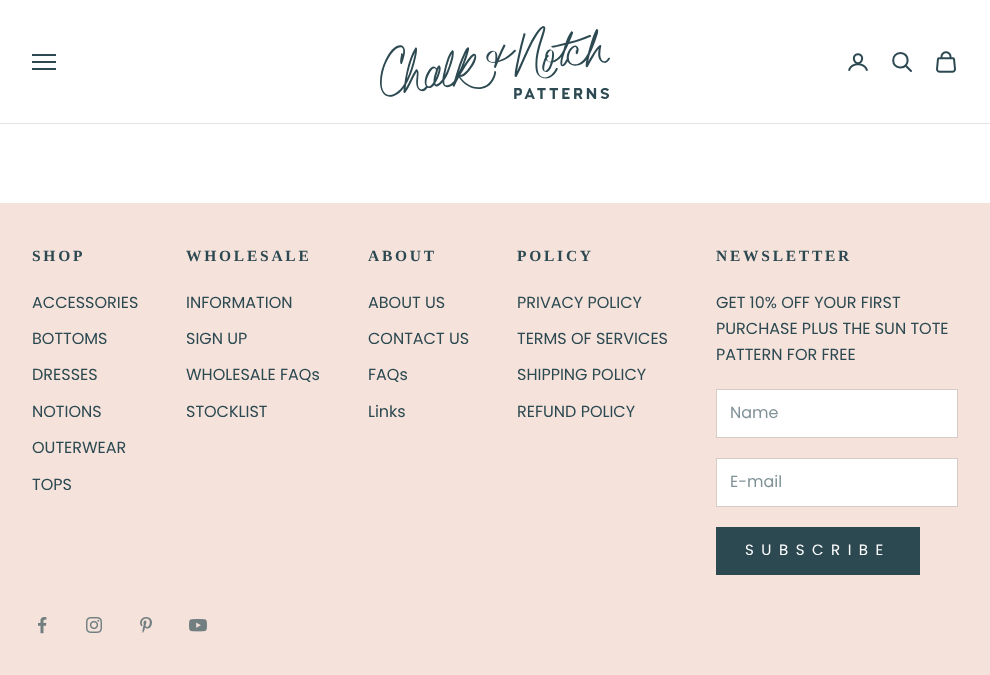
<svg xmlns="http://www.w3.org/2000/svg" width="990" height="675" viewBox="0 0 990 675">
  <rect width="100%" height="100%" fill="rgb(255,255,255)"/>
  <rect x="0" y="123" width="990" height="1" fill="rgb(223,228,229)"/>
  <path d="M33 69H55M33 62H55M33 55H55" fill="none" stroke="rgb(44,73,81)" stroke-width="2" stroke-linecap="square"/>
  <image x="380" y="26" width="230" height="73" href="pic1.png"/>
  <image x="848" y="53" width="20" height="18" href="pic2.png"/>
  <path d="M900.5 53C890.5 53 891 68 900.5 67.5C910 67.5 910 53 900.5 53Z" fill="none" stroke="rgb(44,73,81)" stroke-width="2"/>
  <path d="M906 66L911 71" fill="none" stroke="rgb(44,73,81)" stroke-width="2" stroke-linecap="round"/>
  <image x="936" y="51" width="20" height="22" href="pic3.png"/>
  <rect x="0" y="203" width="990" height="472" fill="rgb(244,226,219)"/>
  <text x="32" y="261" font-family="Liberation Serif" font-size="15.5" font-weight="bold" letter-spacing="2.75" fill="rgb(44,73,81)">SHOP</text>
  <g font-family="Poppins" font-size="16" fill="rgb(44,73,81)">
    <text x="32" y="308">ACCESSORIES</text>
    <text x="32" y="344">BOTTOMS</text>
    <text x="32" y="380">DRESSES</text>
    <text x="32" y="417">NOTIONS</text>
    <text x="32" y="453">OUTERWEAR</text>
    <text x="32" y="490">TOPS</text>
  </g>
  <text x="186" y="261" font-family="Liberation Serif" font-size="15.5" font-weight="bold" letter-spacing="2.75" fill="rgb(44,73,81)">WHOLESALE</text>
  <g font-family="Poppins" font-size="16" fill="rgb(44,73,81)">
    <text x="186" y="308">INFORMATION</text>
    <text x="186" y="344">SIGN UP</text>
    <text x="186" y="380">WHOLESALE FAQs</text>
    <text x="186" y="417">STOCKLIST</text>
  </g>
  <text x="368" y="261" font-family="Liberation Serif" font-size="15.5" font-weight="bold" letter-spacing="2.75" fill="rgb(44,73,81)">ABOUT</text>
  <g font-family="Poppins" font-size="16" fill="rgb(44,73,81)">
    <text x="368" y="308">ABOUT US</text>
    <text x="368" y="344">CONTACT US</text>
    <text x="368" y="380">FAQs</text>
    <text x="368" y="417">Links</text>
  </g>
  <text x="517" y="261" font-family="Liberation Serif" font-size="15.5" font-weight="bold" letter-spacing="2.75" fill="rgb(44,73,81)">POLICY</text>
  <g font-family="Poppins" font-size="16" fill="rgb(44,73,81)">
    <text x="517" y="308">PRIVACY POLICY</text>
    <text x="517" y="344">TERMS OF SERVICES</text>
    <text x="517" y="380">SHIPPING POLICY</text>
    <text x="517" y="417">REFUND POLICY</text>
  </g>
  <text x="716" y="261" font-family="Liberation Serif" font-size="15.5" font-weight="bold" letter-spacing="2.75" fill="rgb(44,73,81)">NEWSLETTER</text>
  <g font-family="Poppins" font-size="16" fill="rgb(44,73,81)">
    <text>
      <tspan x="716" y="308">GET 10% OFF YOUR FIRST</tspan>
      <tspan x="716" y="334">PURCHASE PLUS THE SUN TOTE</tspan>
      <tspan x="716" y="360">PATTERN FOR FREE</tspan>
    </text>
  </g>
  <rect x="716.5" y="389.5" width="241" height="48" fill="rgb(255,255,255)" stroke="rgb(214,203,198)"/>
  <text x="730" y="418" font-family="Poppins" font-size="16" fill="rgb(128,146,151)">Name</text>
  <rect x="716.5" y="458.5" width="241" height="48" fill="rgb(255,255,255)" stroke="rgb(214,203,198)"/>
  <text x="730" y="487" font-family="Poppins" font-size="16" fill="rgb(128,146,151)">E-mail</text>
  <rect x="716.5" y="527.5" width="203" height="47" fill="rgb(44,73,81)" stroke="rgb(44,73,81)"/>
  <text x="745" y="555" font-family="Poppins" font-size="15" letter-spacing="7.5" fill="rgb(255,255,255)">SUBSCRIBE</text>
  <image x="38" y="617" width="9" height="17" href="pic4.png"/>
  <image x="86" y="617" width="16" height="16" href="pic5.png"/>
  <image x="140" y="617" width="12" height="16" href="pic6.png"/>
  <image x="189" y="619" width="18" height="13" href="pic7.png"/>
</svg>
